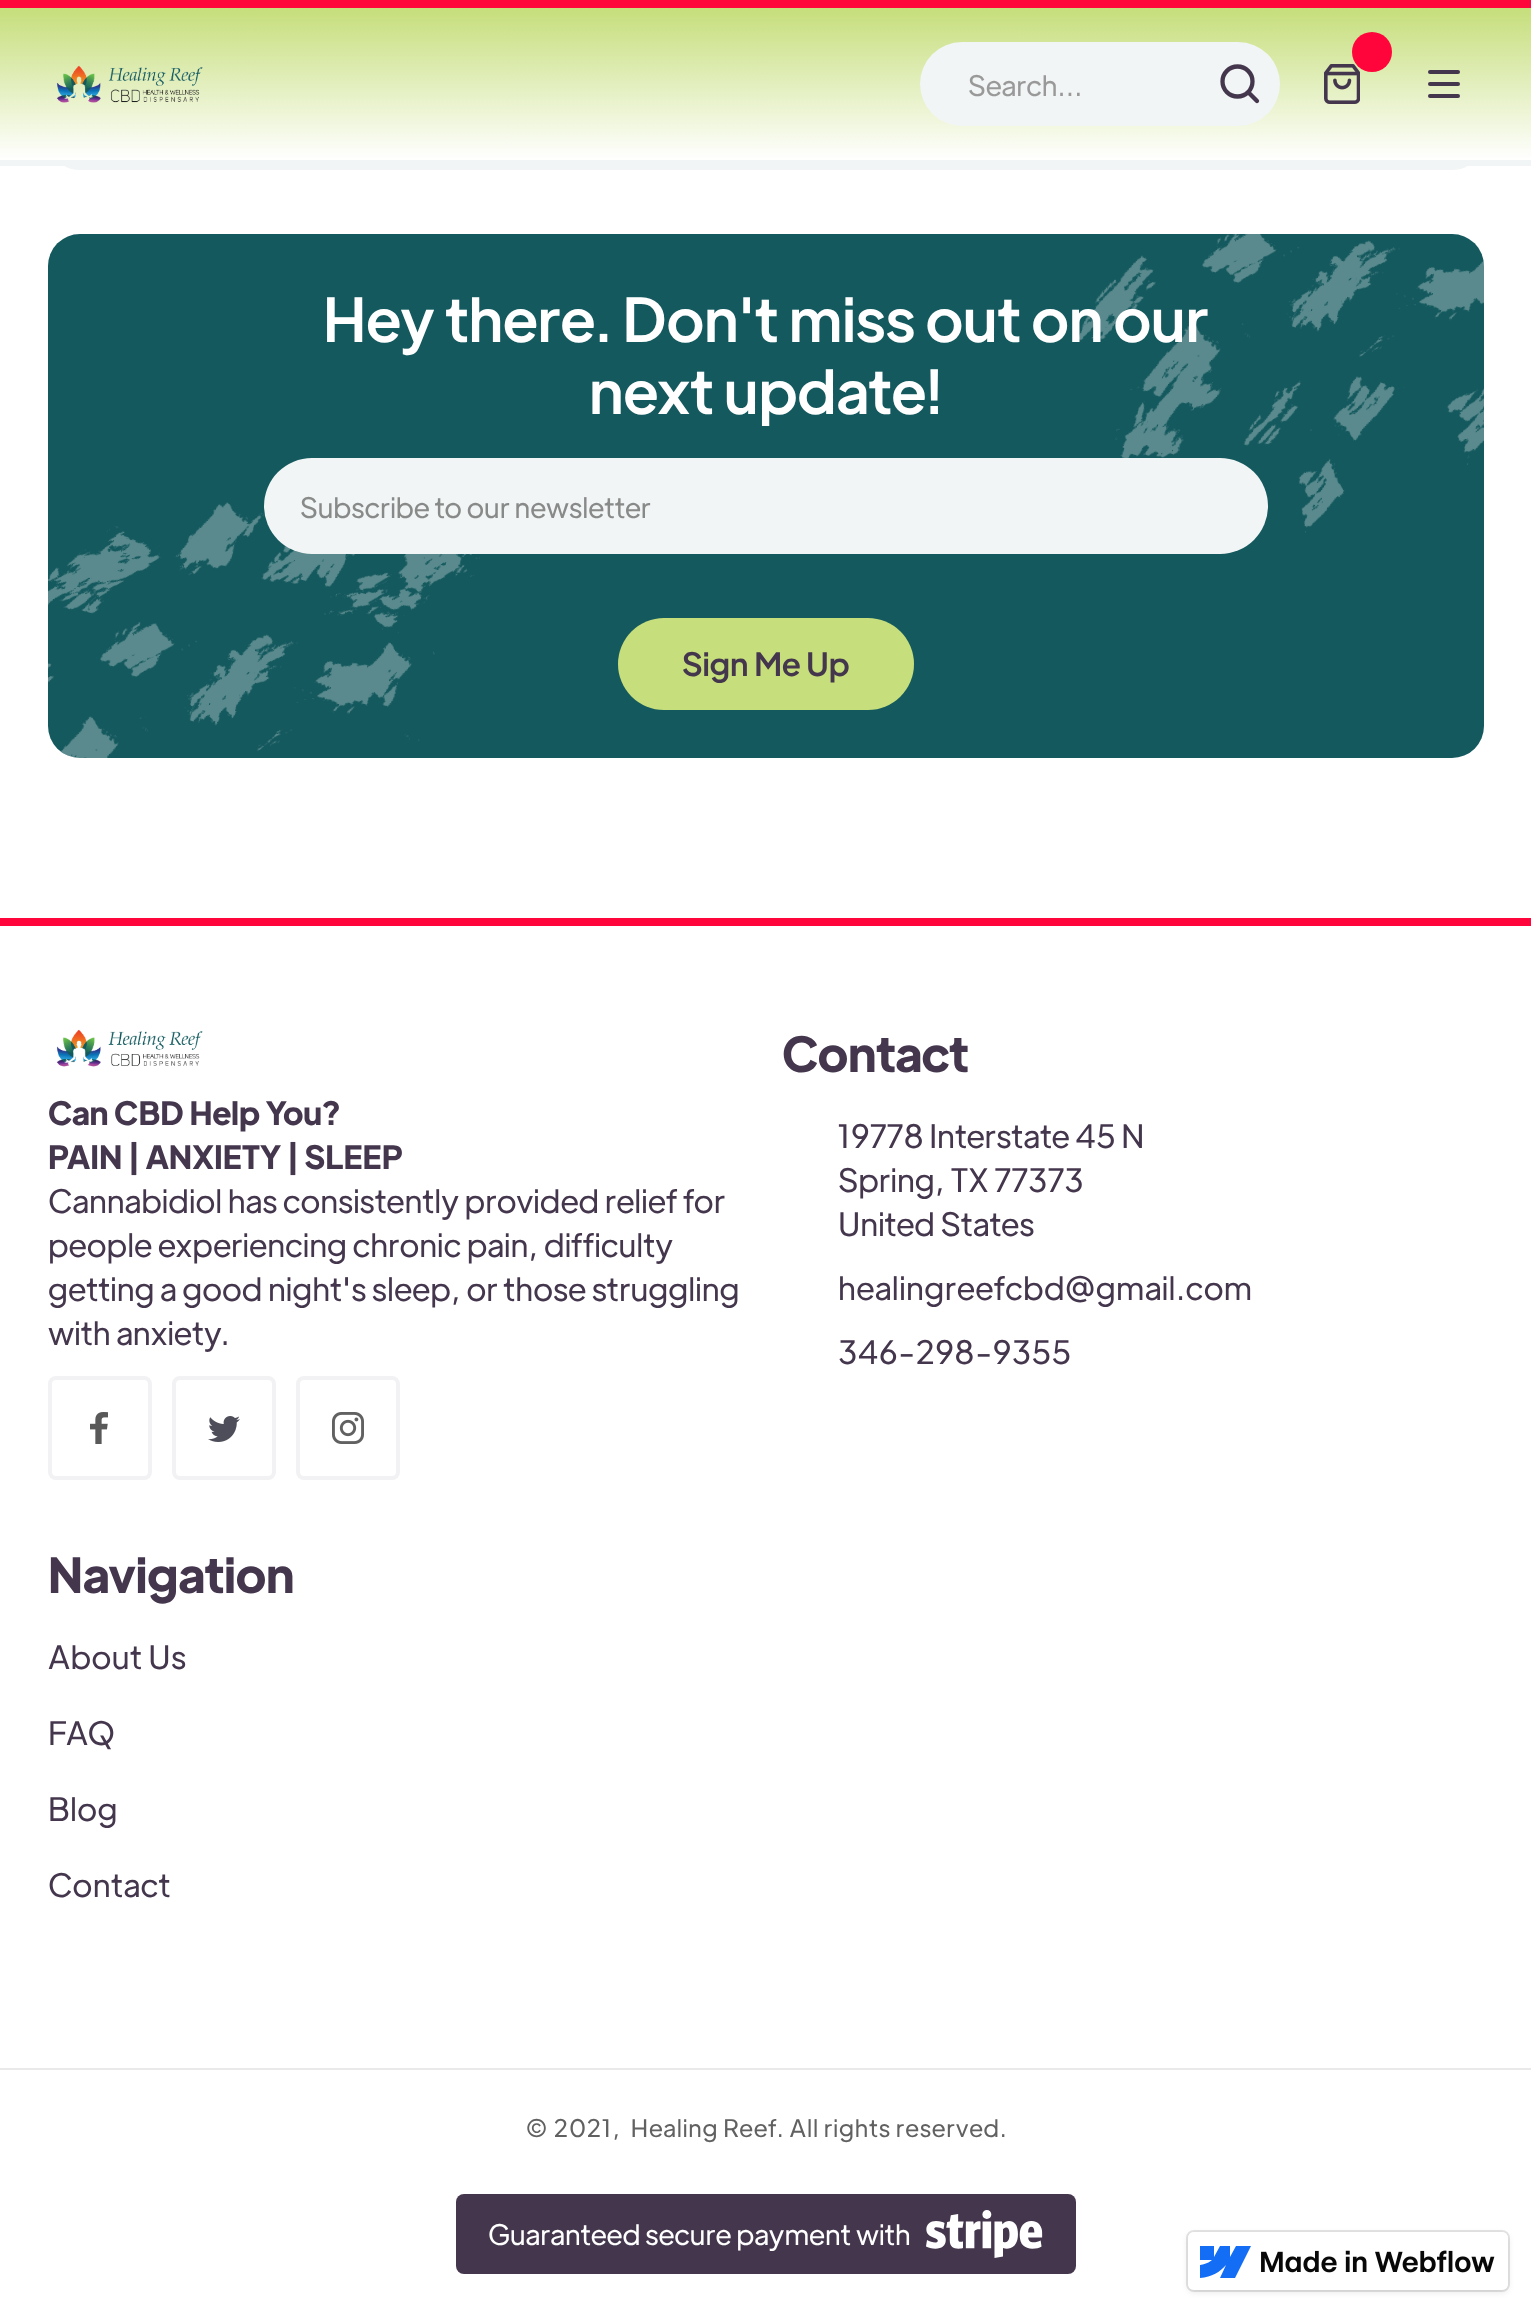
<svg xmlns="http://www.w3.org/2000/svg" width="1531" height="2313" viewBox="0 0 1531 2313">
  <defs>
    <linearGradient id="g1" gradientUnits="userSpaceOnUse" x1="766" y1="8" x2="766" y2="160"><stop offset="0" stop-color="rgb(198,222,123)"/><stop offset="1" stop-color="rgb(255,255,255)"/></linearGradient>
  </defs>
  <rect width="100%" height="100%" fill="rgb(255,255,255)"/>
  <rect x="50" y="-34" width="1432" height="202" rx="30" fill="none" stroke="rgb(242,245,245)" stroke-width="4"/>
  <rect x="0" y="8" width="1531" height="152" fill="url(#g1)"/>
  <rect x="0" y="0" width="1531" height="8" fill="rgb(255,5,59)"/>
  <rect x="0" y="160" width="1531" height="6" fill="rgb(242,245,245)"/>
  <image x="56" y="65" width="147" height="38" href="pic1.png"/>
  <rect x="920" y="42" width="360" height="84" rx="42" fill="rgb(242,245,245)"/>
  <text x="968" y="96" font-family="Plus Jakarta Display" font-size="28" fill="rgb(153,153,153)">Search…</text>
  <path d="M1257 101L1248.5 92.5" fill="none" stroke="rgb(68,55,77)" stroke-width="4.3" stroke-linecap="round" stroke-linejoin="round"/>
  <circle cx="1237.5" cy="81.5" r="15" fill="none" stroke="rgb(68,55,77)" stroke-width="4.3"/>
  <circle cx="1372" cy="52" r="20" fill="rgb(255,5,59)"/>
  <image x="1324" y="64" width="36" height="40" href="pic2.png"/>
  <rect x="1428" y="70" width="32" height="4" rx="2" fill="rgb(68,55,77)"/>
  <rect x="1428" y="82" width="32" height="4" rx="2" fill="rgb(68,55,77)"/>
  <rect x="1428" y="94" width="32" height="4" rx="2" fill="rgb(68,55,77)"/>
  <rect x="48" y="234" width="1436" height="524" rx="32" fill="rgb(20,89,94)"/>
  <image x="48" y="502" width="432" height="256" href="pic3.png"/>
  <image x="1077" y="234" width="407" height="299" href="pic4.png"/>
  <g font-family="Plus Jakarta Display" font-size="60" font-weight="500" fill="rgb(255,255,255)">
    <text x="323" y="342">Hey there. Don't miss out on our</text>
    <text x="589" y="414">next update!</text>
  </g>
  <rect x="264" y="458" width="1004" height="96" rx="48" fill="rgb(242,245,245)"/>
  <text x="300" y="518" font-family="Plus Jakarta Display" font-size="28" fill="rgb(136,137,137)">Subscribe to our newsletter</text>
  <rect x="618" y="618" width="296" height="92" rx="46" fill="rgb(198,222,123)"/>
  <text x="682" y="676" font-family="Plus Jakarta Display" font-size="32" font-weight="500" fill="rgb(68,55,77)">Sign Me Up</text>
  <rect x="0" y="918" width="1531" height="8" fill="rgb(255,5,59)"/>
  <image x="56" y="1029" width="147" height="38" href="pic5.png"/>
  <g font-family="Plus Jakarta Display" font-size="32" font-weight="bold" fill="rgb(68,55,77)">
    <text>
      <tspan x="48" y="1125">Can CBD Help You?</tspan>
      <tspan x="48" y="1169">PAIN | ANXIETY | SLEEP</tspan>
    </text>
  </g>
  <g font-family="Plus Jakarta Display" font-size="32" fill="rgb(68,55,77)">
    <text>
      <tspan x="48" y="1213">Cannabidiol has consistently provided relief for</tspan>
      <tspan x="48" y="1257">people experiencing chronic pain, difficulty</tspan>
      <tspan x="48" y="1301">getting a good night's sleep, or those struggling</tspan>
      <tspan x="48" y="1345">with anxiety.</tspan>
    </text>
  </g>
  <image x="90" y="1412" width="18" height="32" href="pic6.png"/>
  <rect x="50" y="1378" width="100" height="100" rx="6" fill="none" stroke="rgb(242,241,243)" stroke-width="4"/>
  <image x="208" y="1416" width="32" height="26" href="pic7.png"/>
  <rect x="174" y="1378" width="100" height="100" rx="6" fill="none" stroke="rgb(242,241,243)" stroke-width="4"/>
  <image x="332" y="1412" width="32" height="32" href="pic8.png"/>
  <rect x="298" y="1378" width="100" height="100" rx="6" fill="none" stroke="rgb(242,241,243)" stroke-width="4"/>
  <text x="782" y="1072" font-family="Plus Jakarta Display" font-size="48" font-weight="bold" fill="rgb(68,55,77)">Contact</text>
  <g font-family="Plus Jakarta Display" font-size="32" fill="rgb(68,55,77)">
    <text>
      <tspan x="838" y="1148">19778 Interstate 45 N</tspan>
      <tspan x="838" y="1192">Spring, TX 77373</tspan>
      <tspan x="838" y="1236">United States</tspan>
    </text>
  </g>
  <g font-family="Plus Jakarta Display" font-size="32" letter-spacing="0.4" fill="rgb(68,55,77)">
    <text x="838" y="1300">healingreefcbd@gmail.com</text>
    <text x="838" y="1364">346-298-9355</text>
  </g>
  <text x="48" y="1593" font-family="Plus Jakarta Display" font-size="48" font-weight="bold" fill="rgb(68,55,77)">Navigation</text>
  <g font-family="Plus Jakarta Display" font-size="32" letter-spacing="0.4" fill="rgb(68,55,77)">
    <text x="48" y="1669">About Us</text>
    <text x="48" y="1745">FAQ</text>
    <text x="48" y="1821">Blog</text>
    <text x="48" y="1897">Contact</text>
  </g>
  <rect x="0" y="2068" width="1531" height="2" fill="rgb(233,233,233)"/>
  <text x="525" y="2137" font-family="Plus Jakarta Display" font-size="24" letter-spacing="0.8" fill="rgb(97,97,97)" xml:space="preserve">© 2021,  Healing Reef. All rights reserved.</text>
  <rect x="456" y="2194" width="620" height="80" rx="8" fill="rgb(68,55,77)"/>
  <text x="488" y="2245" font-family="Plus Jakarta Display" font-size="28" fill="rgb(255,255,255)">Guaranteed secure payment with</text>
  <image x="926" y="2210" width="117" height="48" href="pic9.png"/>
  <rect x="1188" y="2234" width="320" height="58" rx="6" fill="rgba(0,0,0,0.1)" filter="blur(3px)"/>
  <rect x="1187" y="2231" width="322" height="60" rx="7" fill="none" stroke="rgba(0,0,0,0.1)" stroke-width="2"/>
  <rect x="1188" y="2232" width="320" height="58" rx="6" fill="rgb(255,255,255)"/>
  <path d="M1251 2246L1235 2278H1220L1226 2265C1220 2272 1212 2277 1200 2278V2265C1200 2265 1208 2264 1212 2260H1200V2246H1214V2257L1220 2246H1230V2257L1236 2246Z" fill="rgb(20,110,245)" fill-rule="evenodd"/>
  <image x="1261" y="2250" width="234" height="23" href="pic10.png"/>
</svg>
